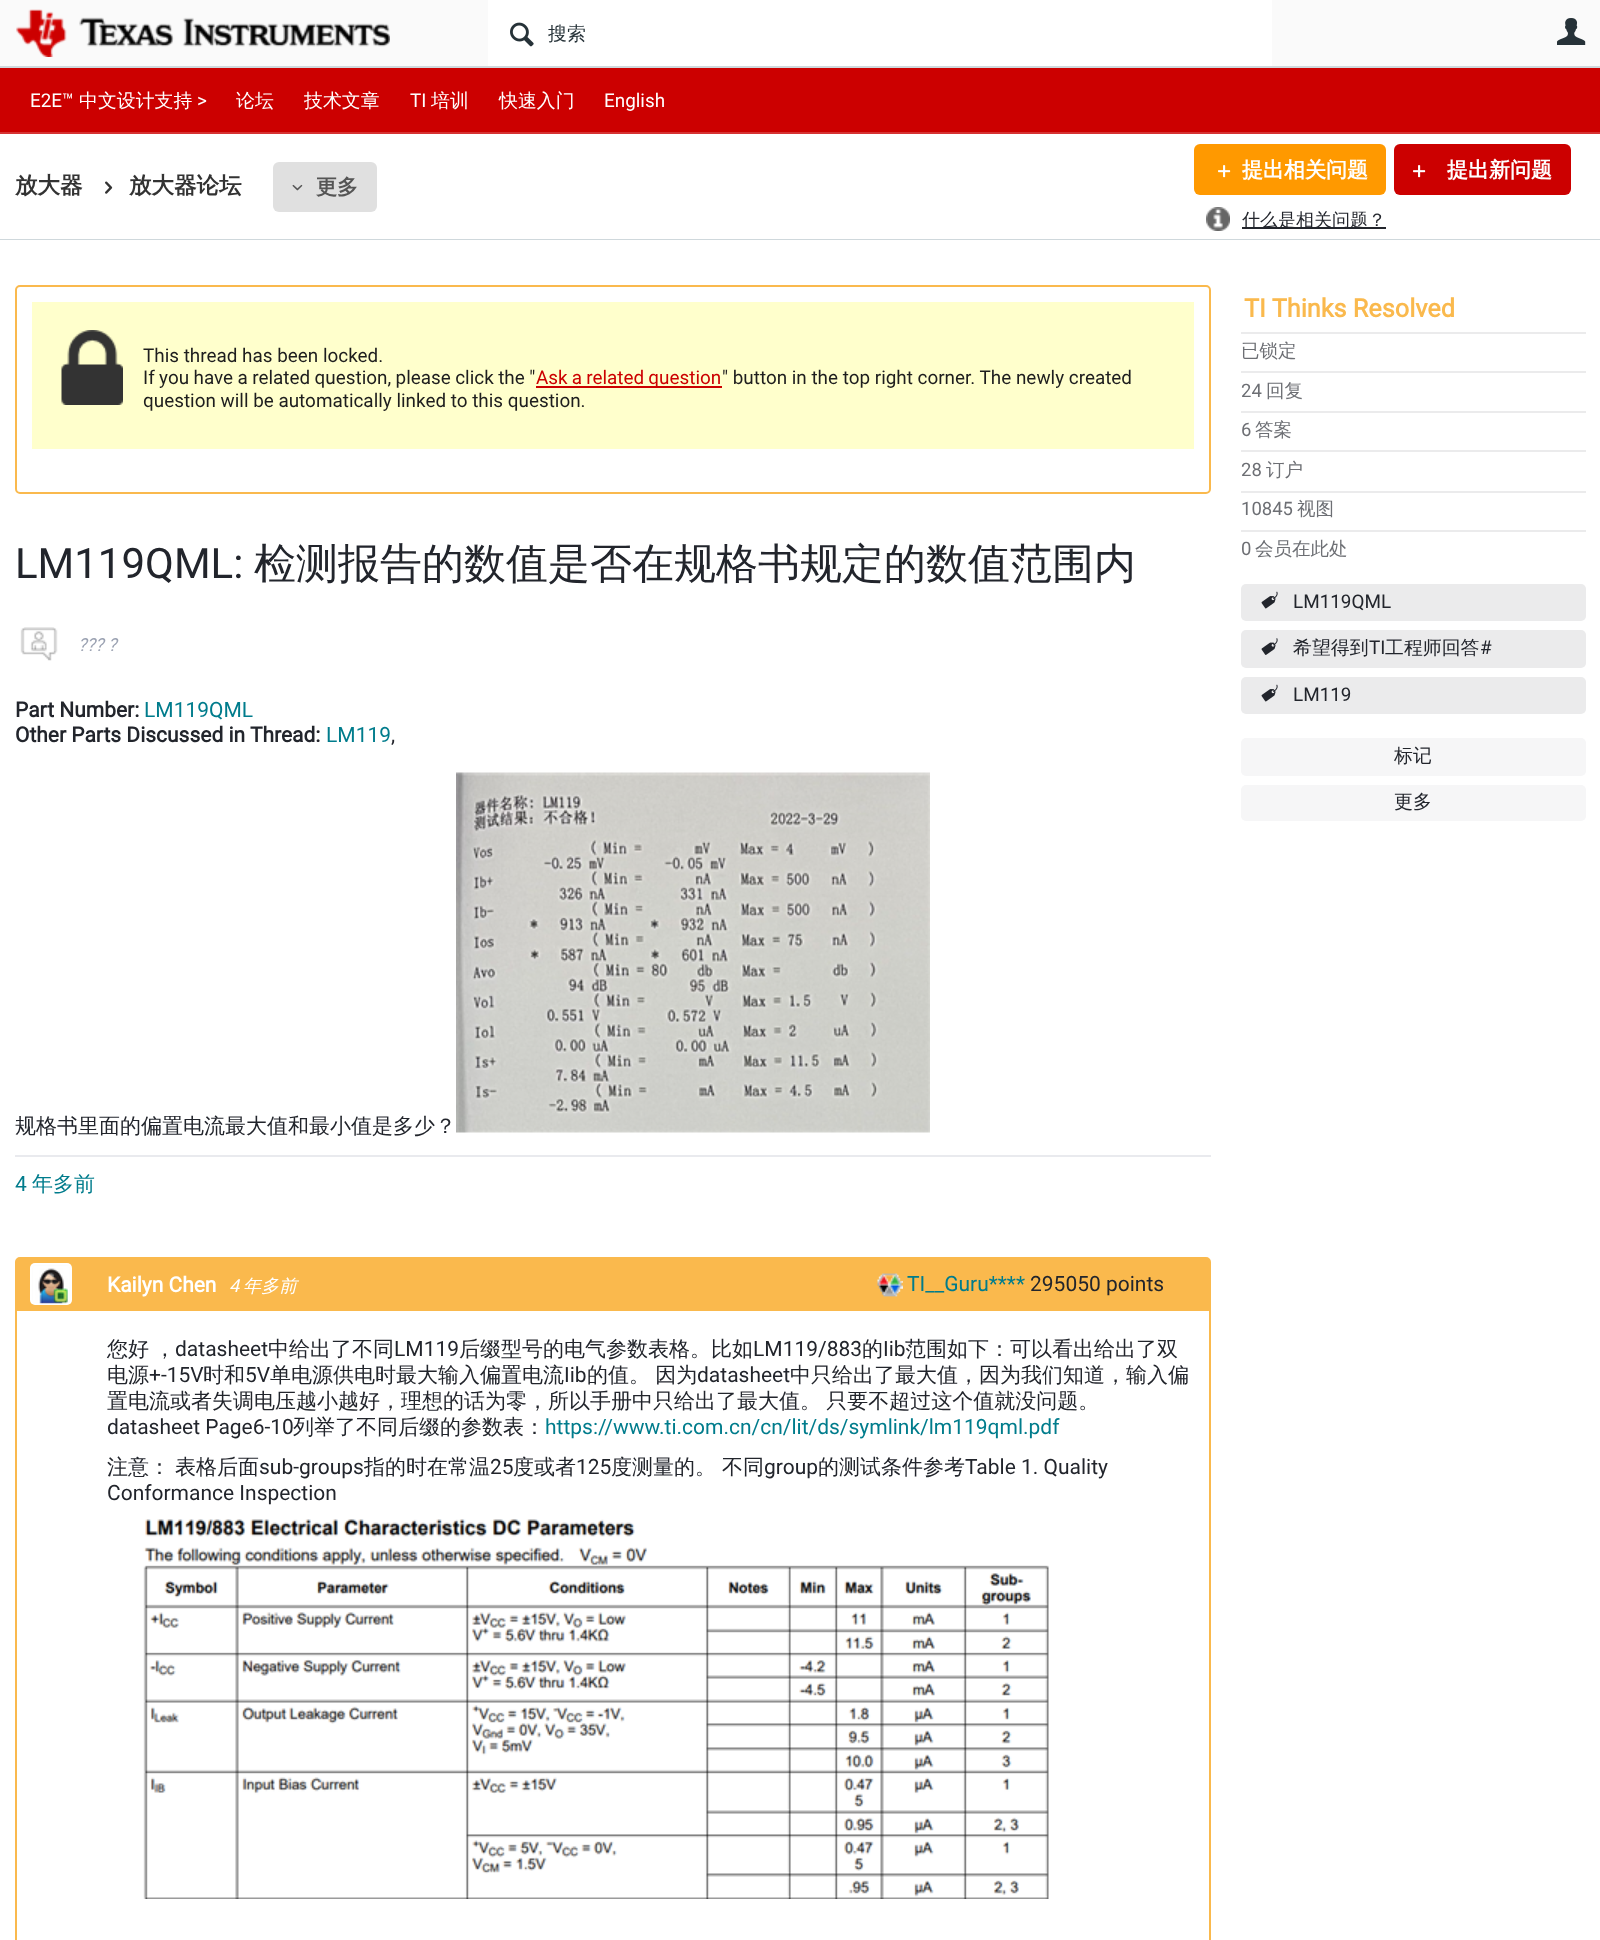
<svg xmlns="http://www.w3.org/2000/svg" width="1600" height="1940" viewBox="0 0 1600 1940">
  <rect width="100%" height="100%" fill="rgb(255,255,255)"/>
  <rect x="0" y="0" width="1600" height="66" fill="rgb(250,250,250)"/>
  <rect x="0" y="66" width="1600" height="2" fill="rgb(207,216,220)"/>
  <image x="16" y="9" width="374" height="48" href="pic1.png"/>
  <rect x="488" y="0" width="784" height="66" fill="rgb(255,255,255)"/>
  <image x="510" y="22" width="24" height="25" href="pic2.png"/>
  <text x="548" y="40" font-family="WenQuanYi Zen Hei" font-size="18.9" font-weight="500" fill="rgb(38,50,56)">搜索</text>
  <image x="1557" y="18" width="29" height="27" href="pic3.png"/>
  <rect x="0" y="239" width="1600" height="1" fill="rgb(207,216,220)"/>
  <rect x="0" y="68" width="1600" height="64" fill="rgb(204,0,0)"/>
  <rect x="0" y="132" width="1600" height="2" fill="rgb(214,51,51)"/>
  <text x="30" y="107" font-family="Roboto" font-size="18.9" fill="rgb(255,255,255)">E2E™</text>
  <text x="79" y="107" font-family="WenQuanYi Zen Hei" font-size="18.9" font-weight="500" fill="rgb(255,255,255)">中文设计支持</text>
  <text x="197" y="107" font-family="Roboto" font-size="18.9" fill="rgb(255,255,255)">&gt;</text>
  <g font-family="WenQuanYi Zen Hei" font-size="18.9" font-weight="500" fill="rgb(255,255,255)">
    <text x="236" y="107">论坛</text>
    <text x="304" y="107">技术文章</text>
  </g>
  <text x="410" y="107" font-family="Roboto" font-size="18.9" fill="rgb(255,255,255)">TI</text>
  <g font-family="WenQuanYi Zen Hei" font-size="18.9" font-weight="500" fill="rgb(255,255,255)">
    <text x="431" y="107">培训</text>
    <text x="499" y="107">快速入门</text>
  </g>
  <text x="604" y="107" font-family="Roboto" font-size="18.9" fill="rgb(255,255,255)">English</text>
  <text x="15" y="193" font-family="WenQuanYi Zen Hei" font-size="22.5" font-weight="bold" fill="rgb(51,51,51)">放大器</text>
  <image x="105" y="181" width="8" height="13" href="pic4.png"/>
  <text x="129" y="193" font-family="WenQuanYi Zen Hei" font-size="22.5" font-weight="bold" fill="rgb(51,51,51)">放大器论坛</text>
  <rect x="273" y="162" width="104" height="50" rx="6" fill="rgb(224,224,224)"/>
  <image x="292" y="184" width="11" height="7" href="pic5.png"/>
  <text x="316" y="194" font-family="WenQuanYi Zen Hei" font-size="21" font-weight="bold" fill="rgb(85,85,85)">更多</text>
  <rect x="1194" y="144" width="192" height="51" rx="6" fill="rgb(255,153,0)"/>
  <image x="1218" y="165" width="13" height="13" href="pic6.png"/>
  <text x="1242" y="177" font-family="WenQuanYi Zen Hei" font-size="21" font-weight="bold" fill="rgb(255,255,255)">提出相关问题</text>
  <image x="1206" y="207" width="24" height="24" href="pic7.png"/>
  <rect x="1242" y="227" width="144" height="2" fill="rgb(34,37,44)"/>
  <text x="1242" y="226" font-family="WenQuanYi Zen Hei" font-size="18" font-weight="500" fill="rgb(34,37,44)">什么是相关问题？</text>
  <rect x="1394" y="144" width="177" height="51" rx="6" fill="rgb(204,0,0)"/>
  <image x="1413" y="165" width="13" height="13" href="pic8.png"/>
  <text x="1447" y="177" font-family="WenQuanYi Zen Hei" font-size="21" font-weight="bold" fill="rgb(255,255,255)">提出新问题</text>
  <rect x="16" y="286" width="1194" height="207" rx="4" fill="none" stroke="rgb(250,185,77)" stroke-width="2"/>
  <rect x="32" y="302" width="1162" height="147" fill="rgb(255,255,204)"/>
  <image x="61" y="330" width="62" height="75" href="pic9.png"/>
  <g font-family="Roboto" font-size="18.9" fill="rgb(30,30,30)">
    <text>
      <tspan x="143" y="362">This thread has been locked.</tspan>
      <tspan x="143" y="384" word-spacing="-0.25">If you have a related question, please click the "</tspan>
    </text>
  </g>
  <rect x="536" y="386" width="186" height="2" fill="rgb(204,0,0)"/>
  <text x="536" y="384" word-spacing="-0.5" font-family="Roboto" font-size="18.9" fill="rgb(204,0,0)">Ask a related question</text>
  <g font-family="Roboto" font-size="18.9" fill="rgb(30,30,30)">
    <text x="722" y="384">" button in the top right corner. The newly created</text>
    <text x="143" y="407">question will be automatically linked to this question.</text>
  </g>
  <text x="15" y="578" font-family="Roboto" font-size="42" fill="rgb(34,37,44)">LM119QML:</text>
  <text x="254" y="578" font-family="WenQuanYi Zen Hei" font-size="42" font-weight="500" fill="rgb(34,37,44)">检测报告的数值是否在规格书规定的数值范围内</text>
  <image x="20" y="627" width="38" height="34" href="pic10.png"/>
  <text x="78" y="651" font-family="Roboto" font-size="18" font-style="italic" fill="rgb(155,162,178)">??? ?</text>
  <rect x="15" y="1155" width="1196" height="2" fill="rgb(233,234,238)"/>
  <text x="15" y="717" font-family="Roboto" font-size="21" font-weight="bold" fill="rgb(34,37,44)">Part Number:</text>
  <text x="144" y="717" font-family="Roboto" font-size="21" fill="rgb(0,124,140)">LM119QML</text>
  <text x="15" y="742" font-family="Roboto" font-size="21" font-weight="bold" fill="rgb(34,37,44)">Other Parts Discussed in Thread:</text>
  <text x="326" y="742" font-family="Roboto" font-size="21" fill="rgb(0,124,140)">LM119</text>
  <text x="391" y="742" font-family="Roboto" font-size="21" fill="rgb(34,37,44)">,</text>
  <text x="15" y="1133" font-family="WenQuanYi Zen Hei" font-size="21" font-weight="500" fill="rgb(34,37,44)">规格书里面的偏置电流最大值和最小值是多少？</text>
  <image x="456" y="772" width="474" height="361" href="pic11.png"/>
  <text x="15" y="1191" font-family="Roboto" font-size="21" fill="rgb(0,124,140)">4</text>
  <text x="32" y="1191" font-family="WenQuanYi Zen Hei" font-size="21" font-weight="500" fill="rgb(0,124,140)">年多前</text>
  <rect x="16" y="1258" width="1194" height="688" rx="4" fill="none" stroke="rgb(250,185,77)" stroke-width="2"/>
  <rect x="17" y="1259" width="1192" height="52" fill="rgb(250,185,77)"/>
  <image x="31" y="1264" width="40" height="40" href="pic12.png"/>
  <rect x="31" y="1264" width="40" height="40" rx="4" fill="none" stroke="rgb(255,255,255)" stroke-width="2"/>
  <image x="39" y="1303" width="28" height="1" href="pic13.png"/>
  <text x="107" y="1292" font-family="Roboto" font-size="21" font-weight="bold" fill="rgb(255,255,255)">Kailyn Chen</text>
  <text x="229" y="1292" font-family="Roboto" font-size="18" font-style="italic" fill="rgb(255,255,255)">4</text>
  <text x="243" y="1292" font-family="WenQuanYi Zen Hei" font-size="18" font-weight="500" font-style="italic" fill="rgb(255,255,255)">年多前</text>
  <image x="877" y="1273" width="26" height="24" href="pic14.png"/>
  <text x="907" y="1291" font-family="Roboto" font-size="21" fill="rgb(0,124,140)">TI__Guru****</text>
  <text x="1030" y="1291" font-family="Roboto" font-size="21" fill="rgb(34,37,44)">295050 points</text>
  <text x="107" y="1356" word-spacing="-1" font-family="WenQuanYi Zen Hei" font-size="21" font-weight="500" fill="rgb(34,37,44)">您好 ，</text>
  <text x="175" y="1356" font-family="Roboto" font-size="21" fill="rgb(34,37,44)">datasheet</text>
  <text x="268" y="1356" font-family="WenQuanYi Zen Hei" font-size="21" font-weight="500" fill="rgb(34,37,44)">中给出了不同</text>
  <text x="394" y="1356" font-family="Roboto" font-size="21" fill="rgb(34,37,44)">LM119</text>
  <text x="459" y="1356" font-family="WenQuanYi Zen Hei" font-size="21" font-weight="500" fill="rgb(34,37,44)">后缀型号的电气参数表格。比如</text>
  <text x="753" y="1356" font-family="Roboto" font-size="21" fill="rgb(34,37,44)">LM119/883</text>
  <text x="862" y="1356" font-family="WenQuanYi Zen Hei" font-size="21" font-weight="500" fill="rgb(34,37,44)">的</text>
  <text x="883" y="1356" font-family="Roboto" font-size="21" fill="rgb(34,37,44)">Iib</text>
  <g font-family="WenQuanYi Zen Hei" font-size="21" font-weight="500" fill="rgb(34,37,44)">
    <text x="905" y="1356">范围如下：可以看出给出了双</text>
    <text x="107" y="1382">电源</text>
  </g>
  <text x="149" y="1382" font-family="Roboto" font-size="21" fill="rgb(34,37,44)">+-15V</text>
  <text x="203" y="1382" font-family="WenQuanYi Zen Hei" font-size="21" font-weight="500" fill="rgb(34,37,44)">时和</text>
  <text x="245" y="1382" font-family="Roboto" font-size="21" fill="rgb(34,37,44)">5V</text>
  <text x="270" y="1382" font-family="WenQuanYi Zen Hei" font-size="21" font-weight="500" fill="rgb(34,37,44)">单电源供电时最大输入偏置电流</text>
  <text x="564" y="1382" font-family="Roboto" font-size="21" fill="rgb(34,37,44)">Iib</text>
  <text x="587" y="1382" word-spacing="-1" font-family="WenQuanYi Zen Hei" font-size="21" font-weight="500" fill="rgb(34,37,44)">的值。 因为</text>
  <text x="697" y="1382" font-family="Roboto" font-size="21" fill="rgb(34,37,44)">datasheet</text>
  <g font-family="WenQuanYi Zen Hei" font-size="21" font-weight="500" fill="rgb(34,37,44)">
    <text x="790" y="1382">中只给出了最大值，因为我们知道，输入偏</text>
    <text x="107" y="1408" word-spacing="-1">置电流或者失调电压越小越好，理想的话为零，所以手册中只给出了最大值。 只要不超过这个值就没问题。</text>
  </g>
  <text x="107" y="1434" font-family="Roboto" font-size="21" fill="rgb(34,37,44)">datasheet Page6-10</text>
  <text x="293" y="1434" font-family="WenQuanYi Zen Hei" font-size="21" font-weight="500" fill="rgb(34,37,44)">列举了不同后缀的参数表：</text>
  <text x="545" y="1434" font-family="Roboto" font-size="21" fill="rgb(0,124,140)">https://www.ti.com.cn/cn/lit/ds/symlink/lm119qml.pdf</text>
  <g font-family="WenQuanYi Zen Hei" font-size="21" font-weight="500" fill="rgb(34,37,44)">
    <text x="107" y="1474">注意：</text>
    <text x="175" y="1474">表格后面</text>
  </g>
  <text x="259" y="1474" font-family="Roboto" font-size="21" fill="rgb(34,37,44)">sub-groups</text>
  <text x="364" y="1474" font-family="WenQuanYi Zen Hei" font-size="21" font-weight="500" fill="rgb(34,37,44)">指的时在常温</text>
  <text x="490" y="1474" font-family="Roboto" font-size="21" fill="rgb(34,37,44)">25</text>
  <text x="513" y="1474" font-family="WenQuanYi Zen Hei" font-size="21" font-weight="500" fill="rgb(34,37,44)">度或者</text>
  <text x="576" y="1474" font-family="Roboto" font-size="21" fill="rgb(34,37,44)">125</text>
  <g font-family="WenQuanYi Zen Hei" font-size="21" font-weight="500" fill="rgb(34,37,44)">
    <text x="611" y="1474">度测量的。</text>
    <text x="722" y="1474">不同</text>
  </g>
  <text x="764" y="1474" font-family="Roboto" font-size="21" fill="rgb(34,37,44)">group</text>
  <text x="818" y="1474" font-family="WenQuanYi Zen Hei" font-size="21" font-weight="500" fill="rgb(34,37,44)">的测试条件参考</text>
  <g font-family="Roboto" font-size="21" fill="rgb(34,37,44)">
    <text x="965" y="1474">Table 1. Quality</text>
    <text x="107" y="1500">Conformance Inspection</text>
  </g>
  <image x="143" y="1519" width="906" height="380" href="pic15.png"/>
  <rect x="1241" y="332" width="345" height="2" fill="rgb(235,235,236)"/>
  <text x="1244" y="317" font-family="Roboto" font-size="25.25" font-weight="bold" fill="rgb(250,185,77)">TI Thinks Resolved</text>
  <rect x="1241" y="371" width="345" height="2" fill="rgb(235,235,236)"/>
  <text x="1241" y="357" font-family="WenQuanYi Zen Hei" font-size="18.5" font-weight="500" fill="rgb(109,111,116)">已锁定</text>
  <rect x="1241" y="411" width="345" height="2" fill="rgb(235,235,236)"/>
  <text x="1241" y="397" font-family="Roboto" font-size="18.5" fill="rgb(109,111,116)">24</text>
  <text x="1266" y="397" font-family="WenQuanYi Zen Hei" font-size="18.5" font-weight="500" fill="rgb(109,111,116)">回复</text>
  <rect x="1241" y="450" width="345" height="2" fill="rgb(235,235,236)"/>
  <text x="1241" y="436" font-family="Roboto" font-size="18.5" fill="rgb(109,111,116)">6</text>
  <text x="1255" y="436" font-family="WenQuanYi Zen Hei" font-size="18.5" font-weight="500" fill="rgb(109,111,116)">答案</text>
  <rect x="1241" y="491" width="345" height="2" fill="rgb(235,235,236)"/>
  <text x="1241" y="476" font-family="Roboto" font-size="18.5" fill="rgb(109,111,116)">28</text>
  <text x="1266" y="476" font-family="WenQuanYi Zen Hei" font-size="18.5" font-weight="500" fill="rgb(109,111,116)">订户</text>
  <rect x="1241" y="530" width="345" height="2" fill="rgb(235,235,236)"/>
  <text x="1241" y="515" font-family="Roboto" font-size="18.5" fill="rgb(109,111,116)">10845</text>
  <text x="1297" y="515" font-family="WenQuanYi Zen Hei" font-size="18.5" font-weight="500" fill="rgb(109,111,116)">视图</text>
  <text x="1241" y="555" font-family="Roboto" font-size="18.5" fill="rgb(109,111,116)">0</text>
  <text x="1255" y="555" font-family="WenQuanYi Zen Hei" font-size="18.5" font-weight="500" fill="rgb(109,111,116)">会员在此处</text>
  <rect x="1241" y="584" width="345" height="37" rx="5" fill="rgb(235,235,236)"/>
  <image x="1261" y="591" width="17" height="18" href="pic16.png"/>
  <text x="1293" y="608" font-family="Roboto" font-size="18.9" fill="rgb(34,37,44)">LM119QML</text>
  <rect x="1241" y="630" width="345" height="38" rx="5" fill="rgb(235,235,236)"/>
  <image x="1261" y="638" width="17" height="17" href="pic17.png"/>
  <text x="1293" y="654" font-family="WenQuanYi Zen Hei" font-size="18.9" font-weight="500" fill="rgb(34,37,44)">希望得到</text>
  <text x="1369" y="654" font-family="Roboto" font-size="18.9" fill="rgb(34,37,44)">TI</text>
  <text x="1385" y="654" font-family="WenQuanYi Zen Hei" font-size="18.9" font-weight="500" fill="rgb(34,37,44)">工程师回答</text>
  <text x="1480" y="654" font-family="Roboto" font-size="18.9" fill="rgb(34,37,44)">#</text>
  <rect x="1241" y="677" width="345" height="37" rx="5" fill="rgb(235,235,236)"/>
  <image x="1261" y="684" width="17" height="18" href="pic16.png"/>
  <text x="1293" y="701" font-family="Roboto" font-size="18.9" fill="rgb(34,37,44)">LM119</text>
  <rect x="1241" y="738" width="345" height="38" rx="5" fill="rgb(246,246,247)"/>
  <text x="1394" y="762" font-family="WenQuanYi Zen Hei" font-size="18.9" font-weight="500" fill="rgb(34,37,44)">标记</text>
  <rect x="1241" y="785" width="345" height="36" rx="5" fill="rgb(246,246,247)"/>
  <text x="1394" y="808" font-family="WenQuanYi Zen Hei" font-size="18.9" font-weight="500" fill="rgb(34,37,44)">更多</text>
</svg>
